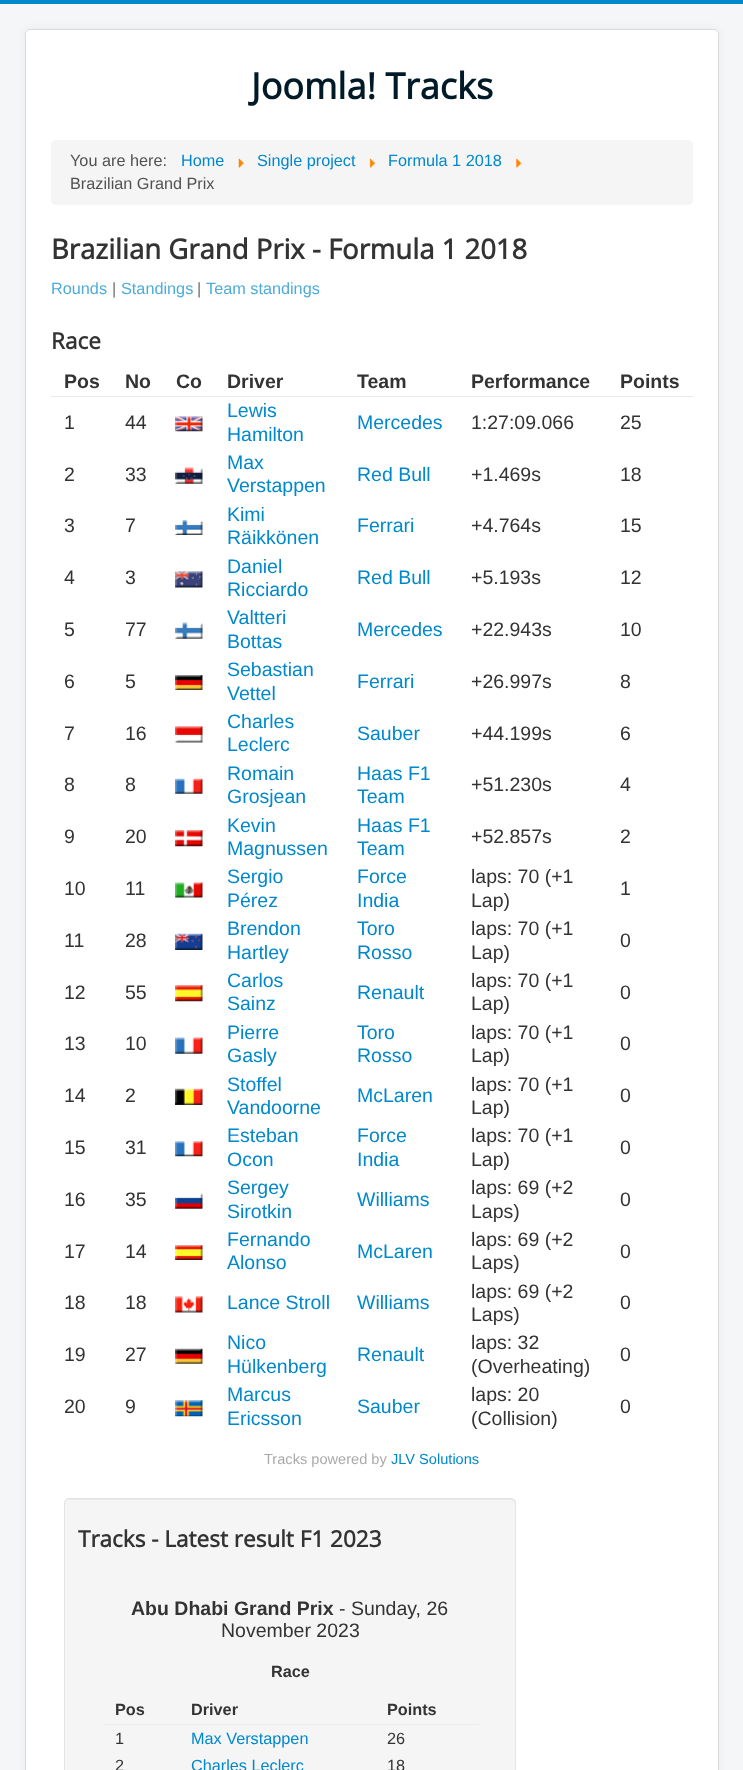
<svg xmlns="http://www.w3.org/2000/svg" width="743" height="1770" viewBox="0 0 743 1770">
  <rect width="100%" height="100%" fill="rgb(244,246,247)"/>
  <rect x="0" y="0" width="743" height="4" fill="rgb(0,136,204)"/>
  <rect x="25" y="29" width="694" height="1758" rx="5" fill="rgba(0,0,0,0.05)" filter="blur(4px)"/>
  <rect x="25" y="29" width="694" height="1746" rx="5" fill="rgb(255,255,255)"/>
  <rect x="25.5" y="29.5" width="693" height="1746" rx="4.5" fill="none" stroke="rgba(0,0,0,0.15)"/>
  <text x="251" y="99" font-family="Open Sans" font-size="36" font-weight="bold" fill="rgb(0,26,39)">Joomla! Tracks</text>
  <rect x="51" y="140" width="642" height="65" rx="5" fill="rgb(245,245,245)"/>
  <text x="70" y="166" font-family="Liberation Sans" font-size="16.25" fill="rgb(81,81,81)">You are here:</text>
  <text x="181" y="166" font-family="Liberation Sans" font-size="16.25" fill="rgb(0,136,204)">Home</text>
  <image x="238" y="158" width="6" height="10" href="pic1.png"/>
  <text x="257" y="166" font-family="Liberation Sans" font-size="16.25" fill="rgb(0,136,204)">Single project</text>
  <image x="369" y="158" width="7" height="10" href="pic2.png"/>
  <text x="388" y="166" font-family="Liberation Sans" font-size="16.25" fill="rgb(0,136,204)">Formula 1 2018</text>
  <image x="516" y="158" width="6" height="10" href="pic3.png"/>
  <text x="70" y="189" font-family="Liberation Sans" font-size="16.25" fill="rgb(81,81,81)">Brazilian Grand Prix</text>
  <text x="51" y="259" font-family="Open Sans" font-size="27.5" font-weight="bold" fill="rgb(51,51,51)">Brazilian Grand Prix - Formula 1 2018</text>
  <text x="51" y="294" font-family="Liberation Sans" font-size="16.25" fill="rgb(77,172,219)">Rounds</text>
  <text x="112" y="294" font-family="Liberation Sans" font-size="16.25" fill="rgb(112,112,112)">|</text>
  <text x="121" y="294" font-family="Liberation Sans" font-size="16.25" fill="rgb(77,172,219)">Standings</text>
  <text x="197" y="294" font-family="Liberation Sans" font-size="16.25" fill="rgb(112,112,112)">|</text>
  <text x="206" y="294" font-family="Liberation Sans" font-size="16.25" fill="rgb(77,172,219)">Team standings</text>
  <text x="51" y="349" font-family="Open Sans" font-size="22.5" font-weight="bold" fill="rgb(51,51,51)">Race</text>
  <g font-family="Liberation Sans" font-size="19.5" font-weight="bold" fill="rgb(51,51,51)">
    <text x="64" y="388">Pos</text>
    <text x="125" y="388">No</text>
    <text x="176" y="388">Co</text>
    <text x="227" y="388">Driver</text>
    <text x="357" y="388">Team</text>
    <text x="471" y="388">Performance</text>
  </g>
  <rect x="51" y="396" width="643" height="1" fill="rgb(236,236,236)"/>
  <text x="620" y="388" font-family="Liberation Sans" font-size="19.5" font-weight="bold" fill="rgb(51,51,51)">Points</text>
  <g font-family="Liberation Sans" font-size="19.5" fill="rgb(51,51,51)">
    <text x="64" y="429">1</text>
    <text x="125" y="429">44</text>
  </g>
  <image x="175" y="416" width="28" height="16" href="pic4.png"/>
  <g font-family="Liberation Sans" font-size="19.5" fill="rgb(0,136,204)">
    <text>
      <tspan x="227" y="417">Lewis</tspan>
      <tspan x="227" y="441">Hamilton</tspan>
    </text>
    <text x="357" y="429">Mercedes</text>
  </g>
  <g font-family="Liberation Sans" font-size="19.5" fill="rgb(51,51,51)">
    <text x="471" y="429">1:27:09.066</text>
    <text x="620" y="429">25</text>
    <text x="64" y="481">2</text>
    <text x="125" y="481">33</text>
  </g>
  <image x="175" y="467" width="28" height="17" href="pic5.png"/>
  <g font-family="Liberation Sans" font-size="19.5" fill="rgb(0,136,204)">
    <text>
      <tspan x="227" y="469">Max</tspan>
      <tspan x="227" y="492">Verstappen</tspan>
    </text>
    <text x="357" y="481">Red Bull</text>
  </g>
  <g font-family="Liberation Sans" font-size="19.5" fill="rgb(51,51,51)">
    <text x="471" y="481">+1.469s</text>
    <text x="620" y="481">18</text>
    <text x="64" y="532">3</text>
    <text x="125" y="532">7</text>
  </g>
  <image x="175" y="520" width="28" height="15" href="pic6.png"/>
  <g font-family="Liberation Sans" font-size="19.5" fill="rgb(0,136,204)">
    <text>
      <tspan x="227" y="521">Kimi</tspan>
      <tspan x="227" y="544">Räikkönen</tspan>
    </text>
    <text x="357" y="532">Ferrari</text>
  </g>
  <g font-family="Liberation Sans" font-size="19.5" fill="rgb(51,51,51)">
    <text x="471" y="532">+4.764s</text>
    <text x="620" y="532">15</text>
    <text x="64" y="584">4</text>
    <text x="125" y="584">3</text>
  </g>
  <image x="175" y="571" width="28" height="17" href="pic7.png"/>
  <g font-family="Liberation Sans" font-size="19.5" fill="rgb(0,136,204)">
    <text>
      <tspan x="227" y="573">Daniel</tspan>
      <tspan x="227" y="596">Ricciardo</tspan>
    </text>
    <text x="357" y="584">Red Bull</text>
  </g>
  <g font-family="Liberation Sans" font-size="19.5" fill="rgb(51,51,51)">
    <text x="471" y="584">+5.193s</text>
    <text x="620" y="584">12</text>
    <text x="64" y="636">5</text>
    <text x="125" y="636">77</text>
  </g>
  <image x="175" y="622" width="28" height="17" href="pic8.png"/>
  <g font-family="Liberation Sans" font-size="19.5" fill="rgb(0,136,204)">
    <text>
      <tspan x="227" y="624">Valtteri</tspan>
      <tspan x="227" y="648">Bottas</tspan>
    </text>
    <text x="357" y="636">Mercedes</text>
  </g>
  <g font-family="Liberation Sans" font-size="19.5" fill="rgb(51,51,51)">
    <text x="471" y="636">+22.943s</text>
    <text x="620" y="636">10</text>
    <text x="64" y="688">6</text>
    <text x="125" y="688">5</text>
  </g>
  <image x="175" y="675" width="28" height="15" href="pic9.png"/>
  <g font-family="Liberation Sans" font-size="19.5" fill="rgb(0,136,204)">
    <text>
      <tspan x="227" y="676">Sebastian</tspan>
      <tspan x="227" y="700">Vettel</tspan>
    </text>
    <text x="357" y="688">Ferrari</text>
  </g>
  <g font-family="Liberation Sans" font-size="19.5" fill="rgb(51,51,51)">
    <text x="471" y="688">+26.997s</text>
    <text x="620" y="688">8</text>
    <text x="64" y="740">7</text>
    <text x="125" y="740">16</text>
  </g>
  <image x="175" y="726" width="28" height="17" href="pic10.png"/>
  <g font-family="Liberation Sans" font-size="19.5" fill="rgb(0,136,204)">
    <text>
      <tspan x="227" y="728">Charles</tspan>
      <tspan x="227" y="751">Leclerc</tspan>
    </text>
    <text x="357" y="740">Sauber</text>
  </g>
  <g font-family="Liberation Sans" font-size="19.5" fill="rgb(51,51,51)">
    <text x="471" y="740">+44.199s</text>
    <text x="620" y="740">6</text>
    <text x="64" y="791">8</text>
    <text x="125" y="791">8</text>
  </g>
  <image x="175" y="778" width="28" height="16" href="pic11.png"/>
  <g font-family="Liberation Sans" font-size="19.5" fill="rgb(0,136,204)">
    <text>
      <tspan x="227" y="780">Romain</tspan>
      <tspan x="227" y="803">Grosjean</tspan>
    </text>
    <text>
      <tspan x="357" y="780">Haas F1</tspan>
      <tspan x="357" y="803">Team</tspan>
    </text>
  </g>
  <g font-family="Liberation Sans" font-size="19.5" fill="rgb(51,51,51)">
    <text x="471" y="791">+51.230s</text>
    <text x="620" y="791">4</text>
    <text x="64" y="843">9</text>
    <text x="125" y="843">20</text>
  </g>
  <image x="175" y="830" width="28" height="17" href="pic12.png"/>
  <g font-family="Liberation Sans" font-size="19.5" fill="rgb(0,136,204)">
    <text>
      <tspan x="227" y="832">Kevin</tspan>
      <tspan x="227" y="855">Magnussen</tspan>
    </text>
    <text>
      <tspan x="357" y="832">Haas F1</tspan>
      <tspan x="357" y="855">Team</tspan>
    </text>
  </g>
  <g font-family="Liberation Sans" font-size="19.5" fill="rgb(51,51,51)">
    <text x="471" y="843">+52.857s</text>
    <text x="620" y="843">2</text>
    <text x="64" y="895">10</text>
    <text x="125" y="895">11</text>
  </g>
  <image x="175" y="882" width="28" height="16" href="pic13.png"/>
  <g font-family="Liberation Sans" font-size="19.5" fill="rgb(0,136,204)">
    <text>
      <tspan x="227" y="883">Sergio</tspan>
      <tspan x="227" y="907">Pérez</tspan>
    </text>
    <text>
      <tspan x="357" y="883">Force</tspan>
      <tspan x="357" y="907">India</tspan>
    </text>
  </g>
  <g font-family="Liberation Sans" font-size="19.5" fill="rgb(51,51,51)">
    <text>
      <tspan x="471" y="883">laps: 70 (+1</tspan>
      <tspan x="471" y="907">Lap)</tspan>
    </text>
    <text x="620" y="895">1</text>
    <text x="64" y="947">11</text>
    <text x="125" y="947">28</text>
  </g>
  <image x="175" y="933" width="28" height="17" href="pic14.png"/>
  <g font-family="Liberation Sans" font-size="19.5" fill="rgb(0,136,204)">
    <text>
      <tspan x="227" y="935">Brendon</tspan>
      <tspan x="227" y="959">Hartley</tspan>
    </text>
    <text>
      <tspan x="357" y="935">Toro</tspan>
      <tspan x="357" y="959">Rosso</tspan>
    </text>
  </g>
  <g font-family="Liberation Sans" font-size="19.5" fill="rgb(51,51,51)">
    <text>
      <tspan x="471" y="935">laps: 70 (+1</tspan>
      <tspan x="471" y="959">Lap)</tspan>
    </text>
    <text x="620" y="947">0</text>
    <text x="64" y="999">12</text>
    <text x="125" y="999">55</text>
  </g>
  <image x="175" y="985" width="28" height="17" href="pic15.png"/>
  <g font-family="Liberation Sans" font-size="19.5" fill="rgb(0,136,204)">
    <text>
      <tspan x="227" y="987">Carlos</tspan>
      <tspan x="227" y="1010">Sainz</tspan>
    </text>
    <text x="357" y="999">Renault</text>
  </g>
  <g font-family="Liberation Sans" font-size="19.5" fill="rgb(51,51,51)">
    <text>
      <tspan x="471" y="987">laps: 70 (+1</tspan>
      <tspan x="471" y="1010">Lap)</tspan>
    </text>
    <text x="620" y="999">0</text>
    <text x="64" y="1050">13</text>
    <text x="125" y="1050">10</text>
  </g>
  <image x="175" y="1037" width="28" height="17" href="pic16.png"/>
  <g font-family="Liberation Sans" font-size="19.5" fill="rgb(0,136,204)">
    <text>
      <tspan x="227" y="1039">Pierre</tspan>
      <tspan x="227" y="1062">Gasly</tspan>
    </text>
    <text>
      <tspan x="357" y="1039">Toro</tspan>
      <tspan x="357" y="1062">Rosso</tspan>
    </text>
  </g>
  <g font-family="Liberation Sans" font-size="19.5" fill="rgb(51,51,51)">
    <text>
      <tspan x="471" y="1039">laps: 70 (+1</tspan>
      <tspan x="471" y="1062">Lap)</tspan>
    </text>
    <text x="620" y="1050">0</text>
    <text x="64" y="1102">14</text>
    <text x="125" y="1102">2</text>
  </g>
  <image x="175" y="1088" width="28" height="17" href="pic17.png"/>
  <g font-family="Liberation Sans" font-size="19.5" fill="rgb(0,136,204)">
    <text>
      <tspan x="227" y="1091">Stoffel</tspan>
      <tspan x="227" y="1114">Vandoorne</tspan>
    </text>
    <text x="357" y="1102">McLaren</text>
  </g>
  <g font-family="Liberation Sans" font-size="19.5" fill="rgb(51,51,51)">
    <text>
      <tspan x="471" y="1091">laps: 70 (+1</tspan>
      <tspan x="471" y="1114">Lap)</tspan>
    </text>
    <text x="620" y="1102">0</text>
    <text x="64" y="1154">15</text>
    <text x="125" y="1154">31</text>
  </g>
  <image x="175" y="1141" width="28" height="16" href="pic18.png"/>
  <g font-family="Liberation Sans" font-size="19.5" fill="rgb(0,136,204)">
    <text>
      <tspan x="227" y="1142">Esteban</tspan>
      <tspan x="227" y="1166">Ocon</tspan>
    </text>
    <text>
      <tspan x="357" y="1142">Force</tspan>
      <tspan x="357" y="1166">India</tspan>
    </text>
  </g>
  <g font-family="Liberation Sans" font-size="19.5" fill="rgb(51,51,51)">
    <text>
      <tspan x="471" y="1142">laps: 70 (+1</tspan>
      <tspan x="471" y="1166">Lap)</tspan>
    </text>
    <text x="620" y="1154">0</text>
    <text x="64" y="1206">16</text>
    <text x="125" y="1206">35</text>
  </g>
  <image x="175" y="1193" width="28" height="16" href="pic19.png"/>
  <g font-family="Liberation Sans" font-size="19.5" fill="rgb(0,136,204)">
    <text>
      <tspan x="227" y="1194">Sergey</tspan>
      <tspan x="227" y="1218">Sirotkin</tspan>
    </text>
    <text x="357" y="1206">Williams</text>
  </g>
  <g font-family="Liberation Sans" font-size="19.5" fill="rgb(51,51,51)">
    <text>
      <tspan x="471" y="1194">laps: 69 (+2</tspan>
      <tspan x="471" y="1218">Laps)</tspan>
    </text>
    <text x="620" y="1206">0</text>
    <text x="64" y="1258">17</text>
    <text x="125" y="1258">14</text>
  </g>
  <image x="175" y="1245" width="28" height="15" href="pic20.png"/>
  <g font-family="Liberation Sans" font-size="19.5" fill="rgb(0,136,204)">
    <text>
      <tspan x="227" y="1246">Fernando</tspan>
      <tspan x="227" y="1269">Alonso</tspan>
    </text>
    <text x="357" y="1258">McLaren</text>
  </g>
  <g font-family="Liberation Sans" font-size="19.5" fill="rgb(51,51,51)">
    <text>
      <tspan x="471" y="1246">laps: 69 (+2</tspan>
      <tspan x="471" y="1269">Laps)</tspan>
    </text>
    <text x="620" y="1258">0</text>
    <text x="64" y="1309">18</text>
    <text x="125" y="1309">18</text>
  </g>
  <image x="175" y="1296" width="28" height="17" href="pic21.png"/>
  <g font-family="Liberation Sans" font-size="19.5" fill="rgb(0,136,204)">
    <text x="227" y="1309">Lance Stroll</text>
    <text x="357" y="1309">Williams</text>
  </g>
  <g font-family="Liberation Sans" font-size="19.5" fill="rgb(51,51,51)">
    <text>
      <tspan x="471" y="1298">laps: 69 (+2</tspan>
      <tspan x="471" y="1321">Laps)</tspan>
    </text>
    <text x="620" y="1309">0</text>
    <text x="64" y="1361">19</text>
    <text x="125" y="1361">27</text>
  </g>
  <image x="175" y="1348" width="28" height="16" href="pic22.png"/>
  <g font-family="Liberation Sans" font-size="19.5" fill="rgb(0,136,204)">
    <text>
      <tspan x="227" y="1349">Nico</tspan>
      <tspan x="227" y="1373">Hülkenberg</tspan>
    </text>
    <text x="357" y="1361">Renault</text>
  </g>
  <g font-family="Liberation Sans" font-size="19.5" fill="rgb(51,51,51)">
    <text>
      <tspan x="471" y="1349">laps: 32</tspan>
      <tspan x="471" y="1373">(Overheating)</tspan>
    </text>
    <text x="620" y="1361">0</text>
    <text x="64" y="1413">20</text>
    <text x="125" y="1413">9</text>
  </g>
  <image x="175" y="1400" width="28" height="17" href="pic23.png"/>
  <g font-family="Liberation Sans" font-size="19.5" fill="rgb(0,136,204)">
    <text>
      <tspan x="227" y="1401">Marcus</tspan>
      <tspan x="227" y="1425">Ericsson</tspan>
    </text>
    <text x="357" y="1413">Sauber</text>
  </g>
  <g font-family="Liberation Sans" font-size="19.5" fill="rgb(51,51,51)">
    <text>
      <tspan x="471" y="1401">laps: 20</tspan>
      <tspan x="471" y="1425">(Collision)</tspan>
    </text>
    <text x="620" y="1413">0</text>
  </g>
  <text x="264" y="1464" font-family="Liberation Sans" font-size="14.6" fill="rgb(170,170,170)">Tracks powered by</text>
  <text x="391" y="1464" font-family="Liberation Sans" font-size="14.6" fill="rgb(0,136,204)">JLV Solutions</text>
  <rect x="64" y="1498" width="452" height="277" rx="5" fill="rgb(245,245,245)"/>
  <path d="M69 1500H511C513 1500 515 1502 515 1504C515 1501 514 1499 511 1499H69L67 1500L66 1501L65 1504C65 1502 67 1500 69 1500Z" fill="rgb(233,233,233)"/>
  <rect x="64.5" y="1498.5" width="451" height="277" rx="4.5" fill="none" stroke="rgb(227,227,227)"/>
  <text x="78" y="1547" font-family="Open Sans" font-size="22.5" font-weight="bold" fill="rgb(51,51,51)">Tracks - Latest result F1 2023</text>
  <text x="131" y="1615" font-family="Liberation Sans" font-size="19.5" font-weight="bold" fill="rgb(51,51,51)">Abu Dhabi Grand Prix</text>
  <g font-family="Liberation Sans" font-size="19.5" fill="rgb(51,51,51)">
    <text x="339" y="1615">- Sunday, 26</text>
    <text x="221" y="1637">November 2023</text>
  </g>
  <g font-family="Liberation Sans" font-size="16.25" font-weight="bold" fill="rgb(51,51,51)">
    <text x="271" y="1677">Race</text>
    <text x="115" y="1715">Pos</text>
    <text x="191" y="1715">Driver</text>
  </g>
  <rect x="103" y="1724" width="376" height="1" fill="rgb(236,236,236)"/>
  <text x="387" y="1715" font-family="Liberation Sans" font-size="16.25" font-weight="bold" fill="rgb(51,51,51)">Points</text>
  <text x="115" y="1744" font-family="Liberation Sans" font-size="16.25" fill="rgb(51,51,51)">1</text>
  <text x="191" y="1744" font-family="Liberation Sans" font-size="16.25" fill="rgb(0,136,204)">Max Verstappen</text>
  <g font-family="Liberation Sans" font-size="16.25" fill="rgb(51,51,51)">
    <text x="387" y="1744">26</text>
    <text x="115" y="1771">2</text>
  </g>
  <text x="191" y="1771" font-family="Liberation Sans" font-size="16.25" fill="rgb(0,136,204)">Charles Leclerc</text>
  <text x="387" y="1771" font-family="Liberation Sans" font-size="16.25" fill="rgb(51,51,51)">18</text>
</svg>
